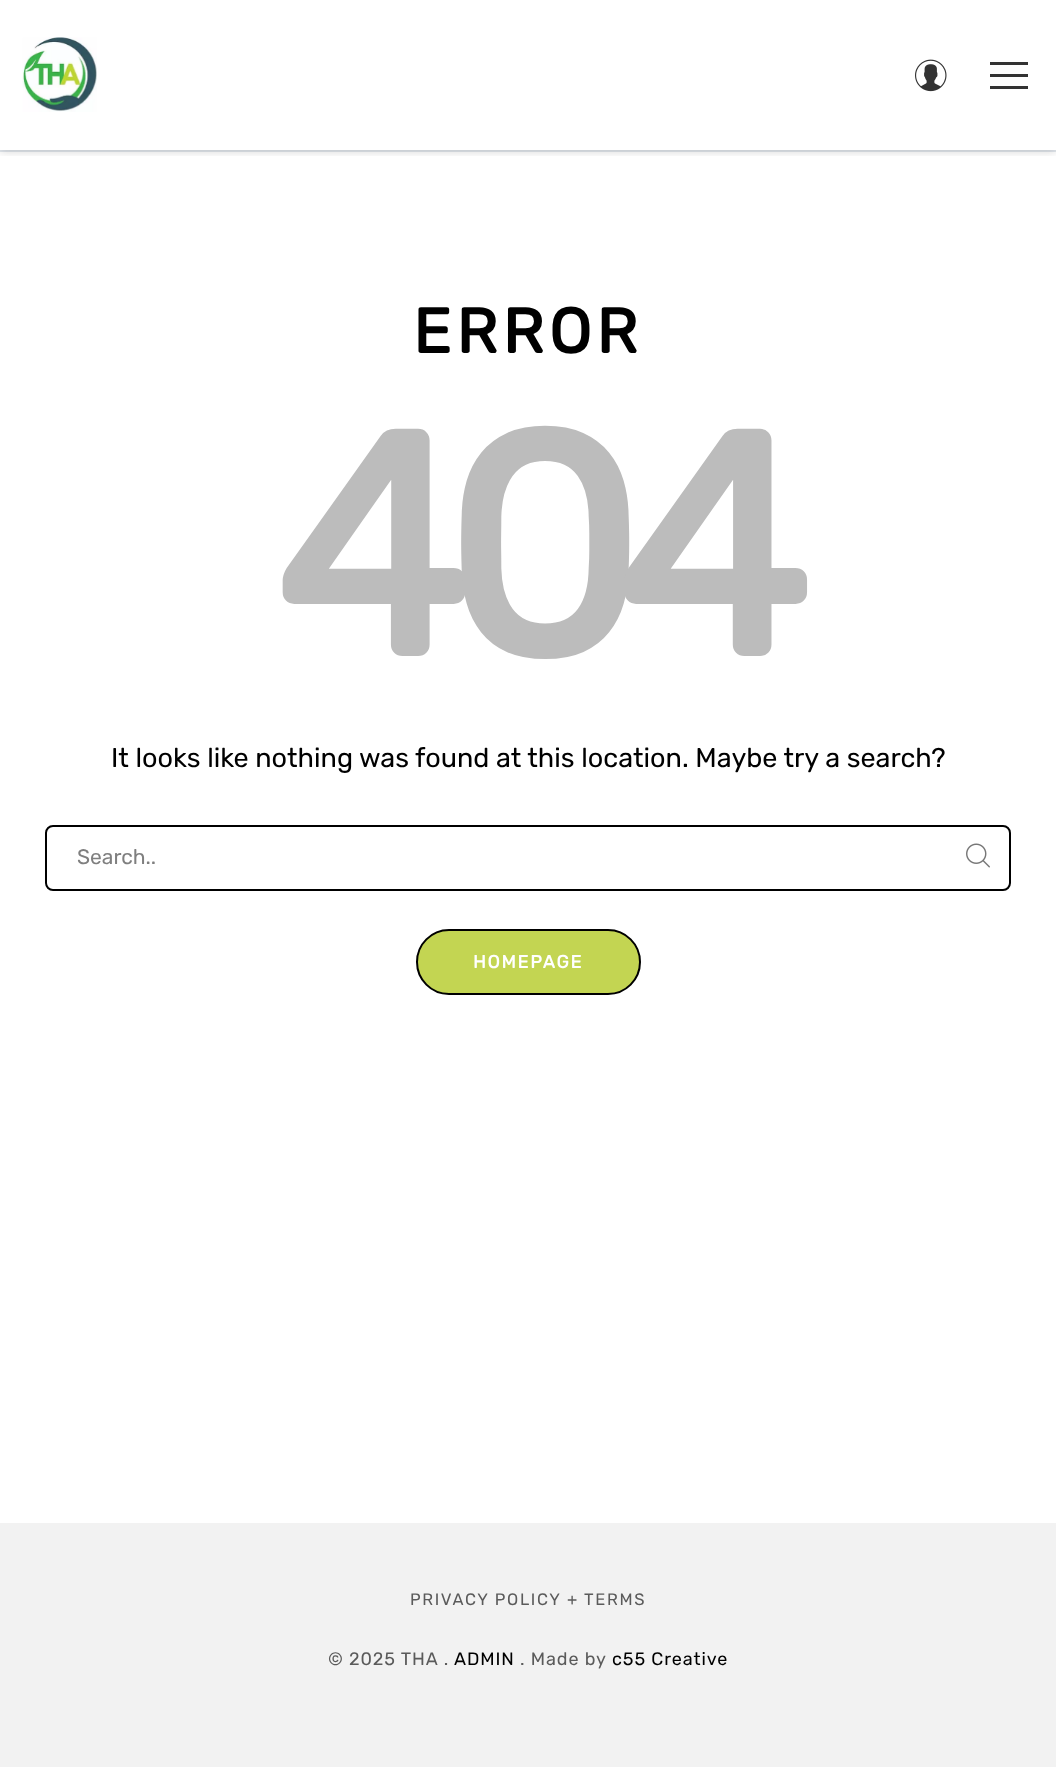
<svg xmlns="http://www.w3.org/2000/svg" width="1056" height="1767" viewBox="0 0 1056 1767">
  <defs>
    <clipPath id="clip1"><rect x="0" y="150" width="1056" height="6"/></clipPath>
  </defs>
  <rect width="100%" height="100%" fill="rgb(255,255,255)"/>
  <rect x="0" y="150" width="1056" height="2" fill="rgb(226,231,237)"/>
  <g clip-path="url(#clip1)">
    <rect x="0" y="2" width="1056" height="150" fill="rgba(0,0,0,0.15)" filter="blur(4px)"/>
  </g>
  <image x="22" y="37" width="75" height="75" href="pic1.png"/>
  <image x="915" y="59" width="32" height="33" href="pic2.png"/>
  <rect x="990" y="62" width="38" height="3" fill="rgb(51,51,51)"/>
  <rect x="990" y="74" width="38" height="3" fill="rgb(51,51,51)"/>
  <rect x="990" y="86" width="38" height="3" fill="rgb(51,51,51)"/>
  <text x="413" y="353" font-family="Rubik" font-size="63" font-weight="bold" letter-spacing="5" fill="rgb(0,0,0)">ERROR</text>
  <text x="273" y="656" font-family="Rubik" font-size="312" font-weight="bold" letter-spacing="-25" fill="rgb(188,188,188)">404</text>
  <text x="111" y="767" font-family="Rubik" font-size="27" font-weight="300" fill="rgb(0,0,0)">It looks like nothing was found at this location. Maybe try a search?</text>
  <rect x="46" y="826" width="964" height="64" rx="7" fill="none" stroke="rgb(0,0,0)" stroke-width="2"/>
  <text x="77" y="864" font-family="Rubik" font-size="21" font-weight="300" fill="rgb(127,127,127)">Search..</text>
  <image x="966" y="843" width="24" height="25" href="pic3.png"/>
  <rect x="417" y="930" width="223" height="64" rx="32" fill="rgb(195,213,82)" stroke="rgb(0,0,0)" stroke-width="2"/>
  <text x="473" y="968" font-family="Rubik" font-size="18" font-weight="bold" letter-spacing="1.75" fill="rgb(255,255,255)">HOMEPAGE</text>
  <rect x="0" y="1523" width="1056" height="244" fill="rgb(242,242,242)"/>
  <text x="410" y="1605" font-family="Rubik" font-size="16.5" font-weight="300" letter-spacing="1.65" fill="rgb(91,91,91)">PRIVACY POLICY + TERMS</text>
  <text x="328" y="1665" font-family="Rubik" font-size="18" font-weight="300" letter-spacing="0.9" fill="rgb(91,91,91)">© 2025 THA .</text>
  <text x="454" y="1665" font-family="Rubik" font-size="18" font-weight="300" letter-spacing="0.9" fill="rgb(0,0,0)">ADMIN</text>
  <text x="520" y="1665" font-family="Rubik" font-size="18" font-weight="300" letter-spacing="0.9" fill="rgb(91,91,91)">. Made by</text>
  <text x="612" y="1665" font-family="Rubik" font-size="18" font-weight="300" letter-spacing="0.9" fill="rgb(0,0,0)">c55 Creative</text>
</svg>
